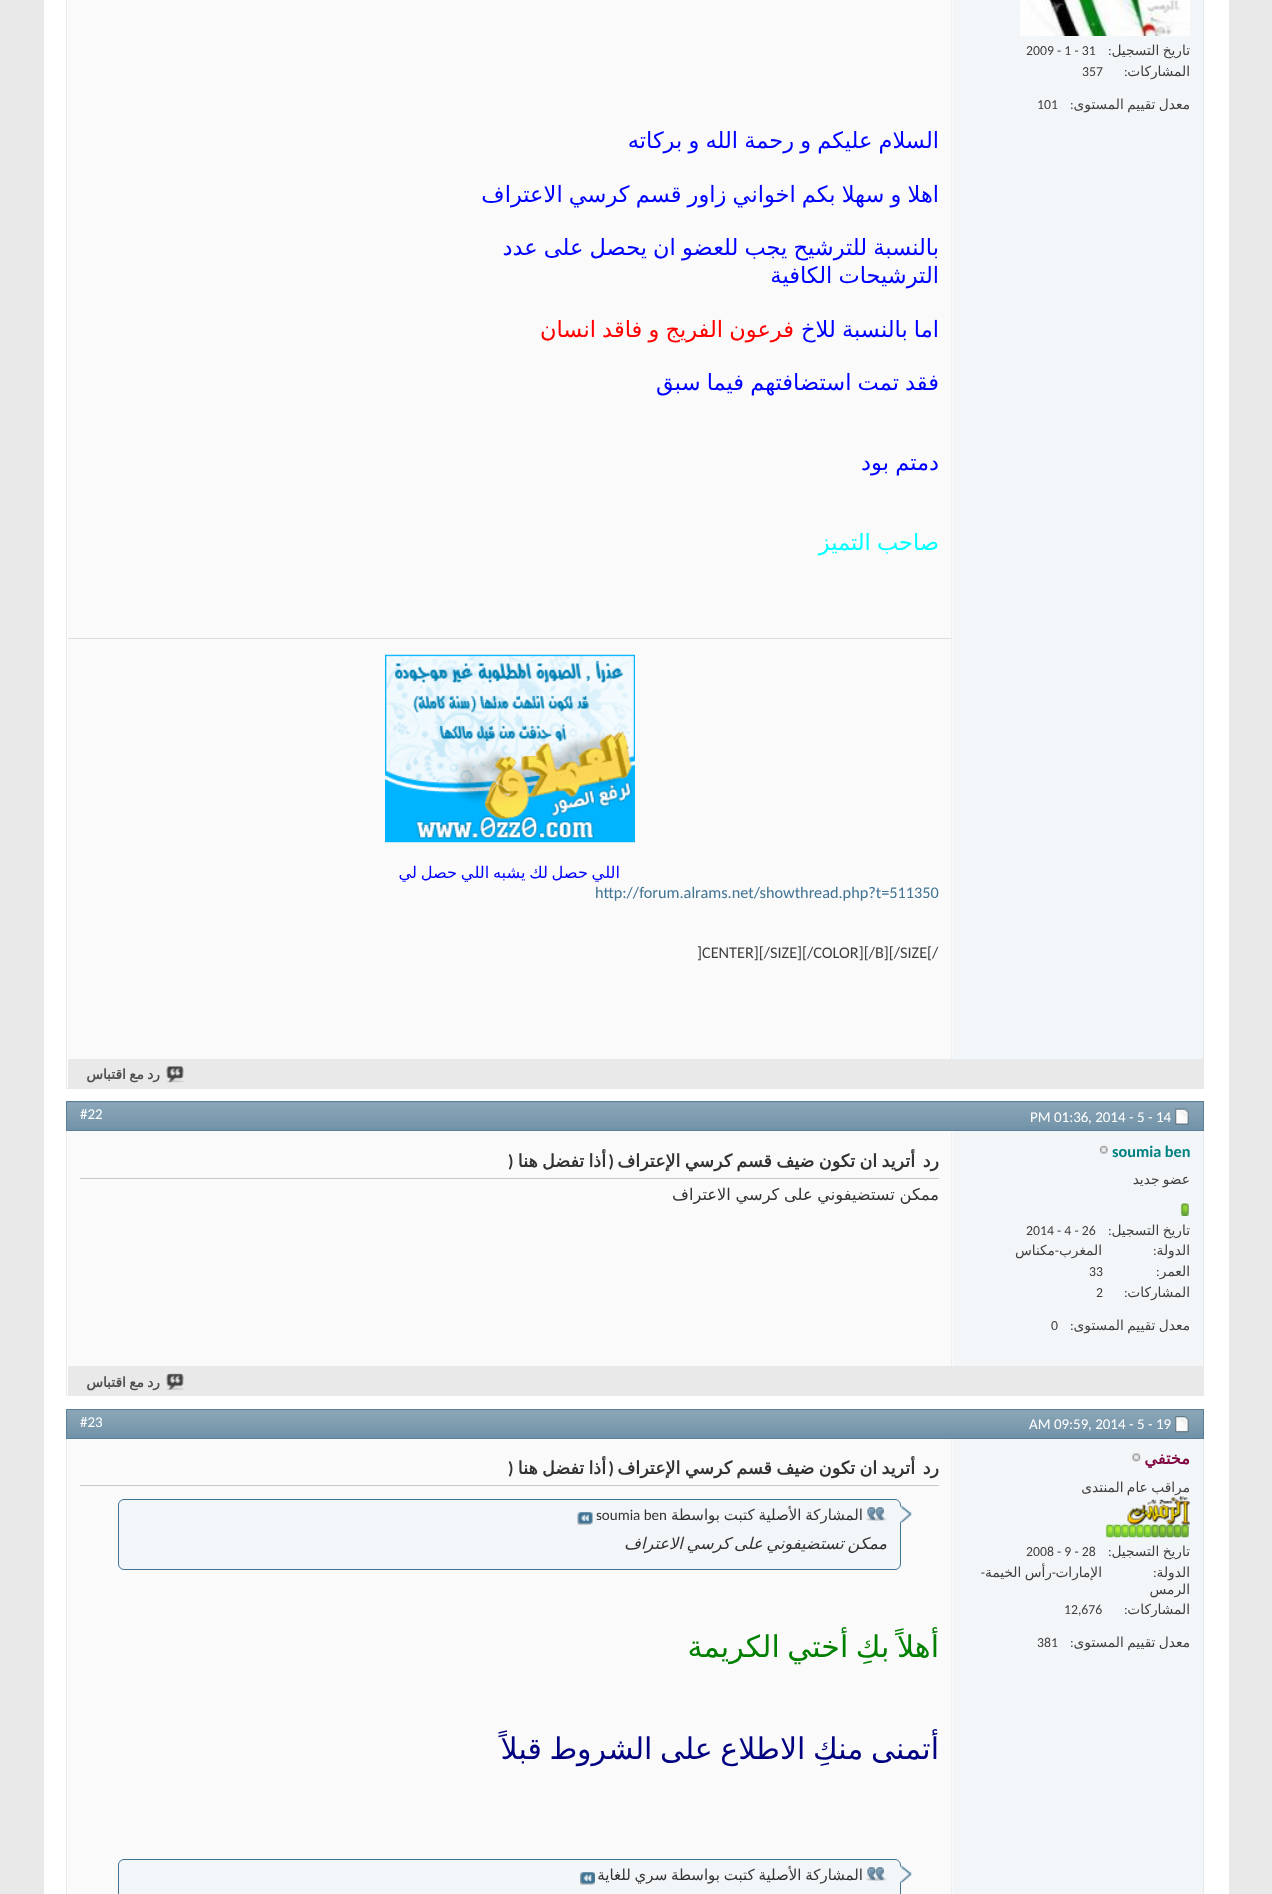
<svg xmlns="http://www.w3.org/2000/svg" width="1272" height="1894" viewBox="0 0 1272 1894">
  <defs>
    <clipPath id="clip1"><rect x="455" y="126" width="484" height="430"/></clipPath>
    <clipPath id="clip2"><rect x="80" y="1185" width="859" height="19"/></clipPath>
    <clipPath id="clip3"><rect x="80" y="1493" width="859" height="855"/></clipPath>
  </defs>
  <rect width="100%" height="100%" fill="rgb(233,233,233)"/>
  <rect x="44" y="0" width="1185" height="1894" fill="rgb(255,255,255)"/>
  <rect x="66.5" y="-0.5" width="1137" height="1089" fill="none" stroke="rgb(233,233,233)"/>
  <rect x="953" y="0" width="250" height="1059" fill="rgb(242,246,248)"/>
  <image x="1020" y="0" width="170" height="36" href="pic1.png"/>
  <text x="1190" y="55" word-spacing="-1" font-family="DejaVu Sans" font-size="13.75" direction="rtl" fill="rgb(62,62,62)">تاريخ التسجيل</text>
  <g font-family="Carlito" font-size="13.75" fill="rgb(62,62,62)">
    <text x="1108" y="55">:</text>
    <text x="1026" y="55">2009 - 1 - 31</text>
  </g>
  <text x="1190" y="76" font-family="DejaVu Sans" font-size="13.75" direction="rtl" fill="rgb(62,62,62)">المشاركات</text>
  <g font-family="Carlito" font-size="13.75" fill="rgb(62,62,62)">
    <text x="1124" y="76">:</text>
    <text x="1082" y="76">357</text>
  </g>
  <text x="1190" y="109" word-spacing="-1" font-family="DejaVu Sans" font-size="13.75" direction="rtl" fill="rgb(62,62,62)">معدل تقييم المستوى</text>
  <g font-family="Carlito" font-size="13.75" fill="rgb(62,62,62)">
    <text x="1070" y="109">:</text>
    <text x="1037" y="109">101</text>
  </g>
  <rect x="68" y="0" width="885" height="1059" fill="rgb(250,250,250)"/>
  <rect x="951" y="0" width="1" height="1059" fill="rgb(239,239,239)"/>
  <g clip-path="url(#clip1)">
    <g font-family="DejaVu Sans" font-size="22.5" direction="rtl" fill="rgb(0,0,255)">
      <text x="939" y="148" word-spacing="-1">السلام عليكم و رحمة الله و بركاته</text>
      <text x="939" y="202" word-spacing="-1">اهلا و سهلا بكم اخواني زاور قسم كرسي الاعتراف</text>
      <text x="939" y="255" word-spacing="-1">بالنسبة للترشيح يجب للعضو ان يحصل على عدد</text>
    </g>
  </g>
  <g font-family="DejaVu Sans" font-size="22.5" direction="rtl" fill="rgb(0,0,255)">
    <text x="939" y="283" word-spacing="-1">الترشيحات الكافية</text>
    <text x="939" y="337" word-spacing="-1">اما بالنسبة للاخ</text>
  </g>
  <text x="794" y="337" word-spacing="-1" font-family="DejaVu Sans" font-size="22.5" direction="rtl" fill="rgb(255,0,0)">فرعون الفريج و فاقد انسان</text>
  <g clip-path="url(#clip1)">
    <text x="939" y="390" word-spacing="-1" font-family="DejaVu Sans" font-size="22.5" direction="rtl" fill="rgb(0,0,255)">فقد تمت استضافتهم فيما سبق</text>
  </g>
  <text x="939" y="470" word-spacing="-1" font-family="DejaVu Sans" font-size="22.5" direction="rtl" fill="rgb(0,0,255)">دمتم بود</text>
  <text x="939" y="550" word-spacing="-1" font-family="DejaVu Sans" font-size="22.5" direction="rtl" fill="rgb(0,255,255)">صاحب التميز</text>
  <rect x="68" y="638" width="883" height="1" fill="rgb(221,221,221)"/>
  <image x="385" y="654" width="250" height="189" href="pic2.png"/>
  <text x="620" y="878" word-spacing="-1.5" font-family="DejaVu Sans" font-size="16.25" direction="rtl" fill="rgb(0,0,255)">اللي حصل لك يشبه اللي حصل لي</text>
  <text x="595" y="898" font-family="Carlito" font-size="16.25" fill="rgb(65,115,148)">http://forum.alrams.net/showthread.php?t=511350</text>
  <text x="697" y="958" font-family="Carlito" font-size="16.25" fill="rgb(62,62,62)">]CENTER][/SIZE][/COLOR][/B][/SIZE[/</text>
  <rect x="68" y="1059" width="1135" height="29" fill="rgb(233,233,233)"/>
  <image x="166" y="1066" width="18" height="17" href="pic3.png"/>
  <text x="160" y="1079" word-spacing="-1" font-family="DejaVu Sans" font-size="13.75" font-weight="bold" direction="rtl" fill="rgb(78,78,78)">رد مع اقتباس</text>
  <rect x="66.5" y="1101.5" width="1137" height="294" fill="none" stroke="rgb(233,233,233)"/>
  <rect x="67" y="1102" width="1136" height="28" fill="rgb(113,146,168)"/>
  <image x="67" y="1102" width="1136" height="25" href="pic4.png"/>
  <rect x="66.5" y="1101.5" width="1137" height="29" fill="none" stroke="rgb(90,127,151)"/>
  <image x="1175" y="1108" width="14" height="17" href="pic5.png"/>
  <g font-family="Carlito" font-size="15" fill="rgb(255,255,255)">
    <text x="1088" y="1122">, 2014 - 5 - 14</text>
    <text x="1030" y="1122">PM 01:36</text>
    <text x="80" y="1119">#22</text>
  </g>
  <rect x="953" y="1131" width="250" height="235" fill="rgb(242,246,248)"/>
  <text x="1112" y="1157" font-family="Carlito" font-size="16.25" font-weight="bold" fill="rgb(0,128,128)">soumia ben</text>
  <image x="1099" y="1145" width="9" height="9" href="pic6.png"/>
  <text x="1190" y="1184" word-spacing="-1" font-family="DejaVu Sans" font-size="13.75" direction="rtl" fill="rgb(62,62,62)">عضو جديد</text>
  <image x="1180" y="1203" width="9" height="13" href="pic7.png"/>
  <text x="1190" y="1235" word-spacing="-1" font-family="DejaVu Sans" font-size="13.75" direction="rtl" fill="rgb(62,62,62)">تاريخ التسجيل</text>
  <g font-family="Carlito" font-size="13.75" fill="rgb(62,62,62)">
    <text x="1108" y="1235">:</text>
    <text x="1026" y="1235">2014 - 4 - 26</text>
  </g>
  <text x="1190" y="1255" font-family="DejaVu Sans" font-size="13.75" direction="rtl" fill="rgb(62,62,62)">الدولة</text>
  <text x="1153" y="1255" font-family="Carlito" font-size="13.75" fill="rgb(62,62,62)">:</text>
  <text x="1102" y="1255" font-family="DejaVu Sans" font-size="13.75" direction="rtl" fill="rgb(62,62,62)">المغرب</text>
  <text x="1059" y="1255" font-family="Carlito" font-size="13.75" direction="rtl" fill="rgb(62,62,62)">-</text>
  <g font-family="DejaVu Sans" font-size="13.75" direction="rtl" fill="rgb(62,62,62)">
    <text x="1055" y="1255">مكناس</text>
    <text x="1190" y="1276">العمر</text>
  </g>
  <g font-family="Carlito" font-size="13.75" fill="rgb(62,62,62)">
    <text x="1156" y="1276">:</text>
    <text x="1089" y="1276">33</text>
  </g>
  <text x="1190" y="1297" font-family="DejaVu Sans" font-size="13.75" direction="rtl" fill="rgb(62,62,62)">المشاركات</text>
  <g font-family="Carlito" font-size="13.75" fill="rgb(62,62,62)">
    <text x="1124" y="1297">:</text>
    <text x="1096" y="1297">2</text>
  </g>
  <text x="1190" y="1330" word-spacing="-1" font-family="DejaVu Sans" font-size="13.75" direction="rtl" fill="rgb(62,62,62)">معدل تقييم المستوى</text>
  <g font-family="Carlito" font-size="13.75" fill="rgb(62,62,62)">
    <text x="1070" y="1330">:</text>
    <text x="1051" y="1330">0</text>
  </g>
  <rect x="68" y="1131" width="885" height="235" fill="rgb(250,250,250)"/>
  <rect x="951" y="1131" width="1" height="235" fill="rgb(239,239,239)"/>
  <rect x="80" y="1178" width="859" height="1" fill="rgb(200,200,200)"/>
  <g font-family="DejaVu Sans" font-size="17.5" font-weight="bold" direction="rtl" fill="rgb(51,51,51)">
    <text x="939" y="1167">رد</text>
    <text x="915" y="1167" word-spacing="-1.25">أتريد ان تكون ضيف قسم كرسي الإعتراف</text>
  </g>
  <text x="614" y="1167" font-family="Carlito" font-size="17.5" font-weight="bold" direction="rtl" fill="rgb(51,51,51)">(</text>
  <text x="606" y="1167" word-spacing="-1.25" font-family="DejaVu Sans" font-size="17.5" font-weight="bold" direction="rtl" fill="rgb(51,51,51)">أذا تفضل هنا</text>
  <text x="508" y="1167" font-family="Carlito" font-size="17.5" font-weight="bold" fill="rgb(51,51,51)">)</text>
  <g clip-path="url(#clip2)">
    <text x="939" y="1200" word-spacing="-0.5" font-family="DejaVu Sans" font-size="16.25" direction="rtl" fill="rgb(51,51,51)">ممكن تستضيفوني على كرسي الاعتراف</text>
  </g>
  <rect x="68" y="1366" width="1135" height="29" fill="rgb(233,233,233)"/>
  <image x="166" y="1373" width="18" height="17" href="pic8.png"/>
  <text x="160" y="1387" word-spacing="-1" font-family="DejaVu Sans" font-size="13.75" font-weight="bold" direction="rtl" fill="rgb(78,78,78)">رد مع اقتباس</text>
  <rect x="66.5" y="1409.5" width="1137" height="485" fill="none" stroke="rgb(233,233,233)"/>
  <rect x="67" y="1410" width="1136" height="28" fill="rgb(113,146,168)"/>
  <image x="67" y="1410" width="1136" height="24" href="pic9.png"/>
  <rect x="66.5" y="1409.5" width="1137" height="29" fill="none" stroke="rgb(90,127,151)"/>
  <image x="1175" y="1416" width="14" height="17" href="pic10.png"/>
  <g font-family="Carlito" font-size="15" fill="rgb(255,255,255)">
    <text x="1088" y="1429">, 2014 - 5 - 19</text>
    <text x="1029" y="1429">AM 09:59</text>
    <text x="80" y="1427">#23</text>
  </g>
  <rect x="953" y="1439" width="250" height="455" fill="rgb(242,246,248)"/>
  <text x="1190" y="1464" font-family="DejaVu Sans" font-size="16.25" font-weight="bold" direction="rtl" fill="rgb(129,5,65)">مختفي</text>
  <image x="1132" y="1453" width="9" height="9" href="pic11.png"/>
  <text x="1190" y="1492" word-spacing="-1" font-family="DejaVu Sans" font-size="13.75" direction="rtl" fill="rgb(62,62,62)">مراقب عام المنتدى</text>
  <image x="1127" y="1496" width="63" height="29" href="pic12.png"/>
  <image x="1180" y="1524" width="9" height="14" href="pic13.png"/>
  <image x="1172" y="1524" width="10" height="14" href="pic14.png"/>
  <image x="1165" y="1524" width="9" height="14" href="pic15.png"/>
  <image x="1157" y="1524" width="10" height="14" href="pic16.png"/>
  <image x="1150" y="1524" width="9" height="14" href="pic17.png"/>
  <image x="1142" y="1524" width="10" height="14" href="pic18.png"/>
  <image x="1135" y="1524" width="9" height="14" href="pic19.png"/>
  <image x="1127" y="1524" width="10" height="14" href="pic20.png"/>
  <image x="1120" y="1524" width="9" height="14" href="pic21.png"/>
  <image x="1112" y="1524" width="10" height="14" href="pic22.png"/>
  <image x="1105" y="1524" width="9" height="14" href="pic21.png"/>
  <text x="1190" y="1556" word-spacing="-1" font-family="DejaVu Sans" font-size="13.75" direction="rtl" fill="rgb(62,62,62)">تاريخ التسجيل</text>
  <g font-family="Carlito" font-size="13.75" fill="rgb(62,62,62)">
    <text x="1108" y="1556">:</text>
    <text x="1026" y="1556">2008 - 9 - 28</text>
  </g>
  <g font-family="DejaVu Sans" font-size="13.75" direction="rtl" fill="rgb(62,62,62)">
    <text x="1102" y="1577">الإمارات</text>
    <text x="1052" y="1577" word-spacing="-1">رأس الخيمة</text>
  </g>
  <g font-family="Carlito" font-size="13.75" direction="rtl" fill="rgb(62,62,62)">
    <text x="1056" y="1577">-</text>
    <text x="985" y="1577">-</text>
  </g>
  <g font-family="DejaVu Sans" font-size="13.75" direction="rtl" fill="rgb(62,62,62)">
    <text x="1190" y="1594">الرمس</text>
    <text x="1190" y="1577">الدولة</text>
  </g>
  <text x="1153" y="1577" font-family="Carlito" font-size="13.75" fill="rgb(62,62,62)">:</text>
  <text x="1190" y="1614" font-family="DejaVu Sans" font-size="13.75" direction="rtl" fill="rgb(62,62,62)">المشاركات</text>
  <g font-family="Carlito" font-size="13.75" fill="rgb(62,62,62)">
    <text x="1124" y="1614">:</text>
    <text x="1064" y="1614">12,676</text>
  </g>
  <text x="1190" y="1647" word-spacing="-1" font-family="DejaVu Sans" font-size="13.75" direction="rtl" fill="rgb(62,62,62)">معدل تقييم المستوى</text>
  <g font-family="Carlito" font-size="13.75" fill="rgb(62,62,62)">
    <text x="1070" y="1647">:</text>
    <text x="1037" y="1647">381</text>
  </g>
  <rect x="68" y="1439" width="885" height="455" fill="rgb(250,250,250)"/>
  <rect x="951" y="1439" width="1" height="455" fill="rgb(239,239,239)"/>
  <rect x="80" y="1485" width="859" height="1" fill="rgb(200,200,200)"/>
  <g font-family="DejaVu Sans" font-size="17.5" font-weight="bold" direction="rtl" fill="rgb(51,51,51)">
    <text x="939" y="1474">رد</text>
    <text x="915" y="1474" word-spacing="-1.25">أتريد ان تكون ضيف قسم كرسي الإعتراف</text>
  </g>
  <text x="614" y="1474" font-family="Carlito" font-size="17.5" font-weight="bold" direction="rtl" fill="rgb(51,51,51)">(</text>
  <text x="606" y="1474" word-spacing="-1.25" font-family="DejaVu Sans" font-size="17.5" font-weight="bold" direction="rtl" fill="rgb(51,51,51)">أذا تفضل هنا</text>
  <text x="508" y="1474" font-family="Carlito" font-size="17.5" font-weight="bold" fill="rgb(51,51,51)">)</text>
  <rect x="118.5" y="1499.5" width="782" height="70" rx="5.5" fill="rgb(242,246,248)" stroke="rgb(65,115,148)"/>
  <image x="900" y="1506" width="12" height="17" href="pic23.png"/>
  <image x="866" y="1507" width="21" height="14" href="pic24.png"/>
  <text x="863" y="1520" word-spacing="-1" font-family="DejaVu Sans" font-size="15" direction="rtl" fill="rgb(51,51,51)">المشاركة الأصلية كتبت بواسطة</text>
  <text x="596" y="1520" font-family="Carlito" font-size="15" fill="rgb(51,51,51)">soumia ben</text>
  <image x="577" y="1512" width="16" height="13" href="pic25.png"/>
  <text x="887" y="1549" word-spacing="-1.5" font-family="DejaVu Sans" font-size="16.25" font-style="italic" direction="rtl" fill="rgb(51,51,51)">ممكن تستضيفوني على كرسي الاعتراف</text>
  <g clip-path="url(#clip3)">
    <text x="939" y="1657" word-spacing="-2" font-family="DejaVu Sans" font-size="30" direction="rtl" fill="rgb(0,128,0)">أهلاً بكِ أختي الكريمة</text>
    <text x="939" y="1759" word-spacing="-2" font-family="DejaVu Sans" font-size="30" direction="rtl" fill="rgb(0,0,128)">أتمنى منكِ الاطلاع على الشروط قبلاً</text>
  </g>
  <rect x="118.5" y="1859.5" width="782" height="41" rx="5.5" fill="rgb(242,246,248)" stroke="rgb(65,115,148)"/>
  <image x="900" y="1866" width="12" height="17" href="pic23.png"/>
  <text x="863" y="1880" word-spacing="-1" font-family="DejaVu Sans" font-size="15" direction="rtl" fill="rgb(51,51,51)">المشاركة الأصلية كتبت بواسطة سري للغاية</text>
  <image x="866" y="1867" width="21" height="14" href="pic26.png"/>
  <image x="580" y="1872" width="15" height="13" href="pic27.png"/>
</svg>
